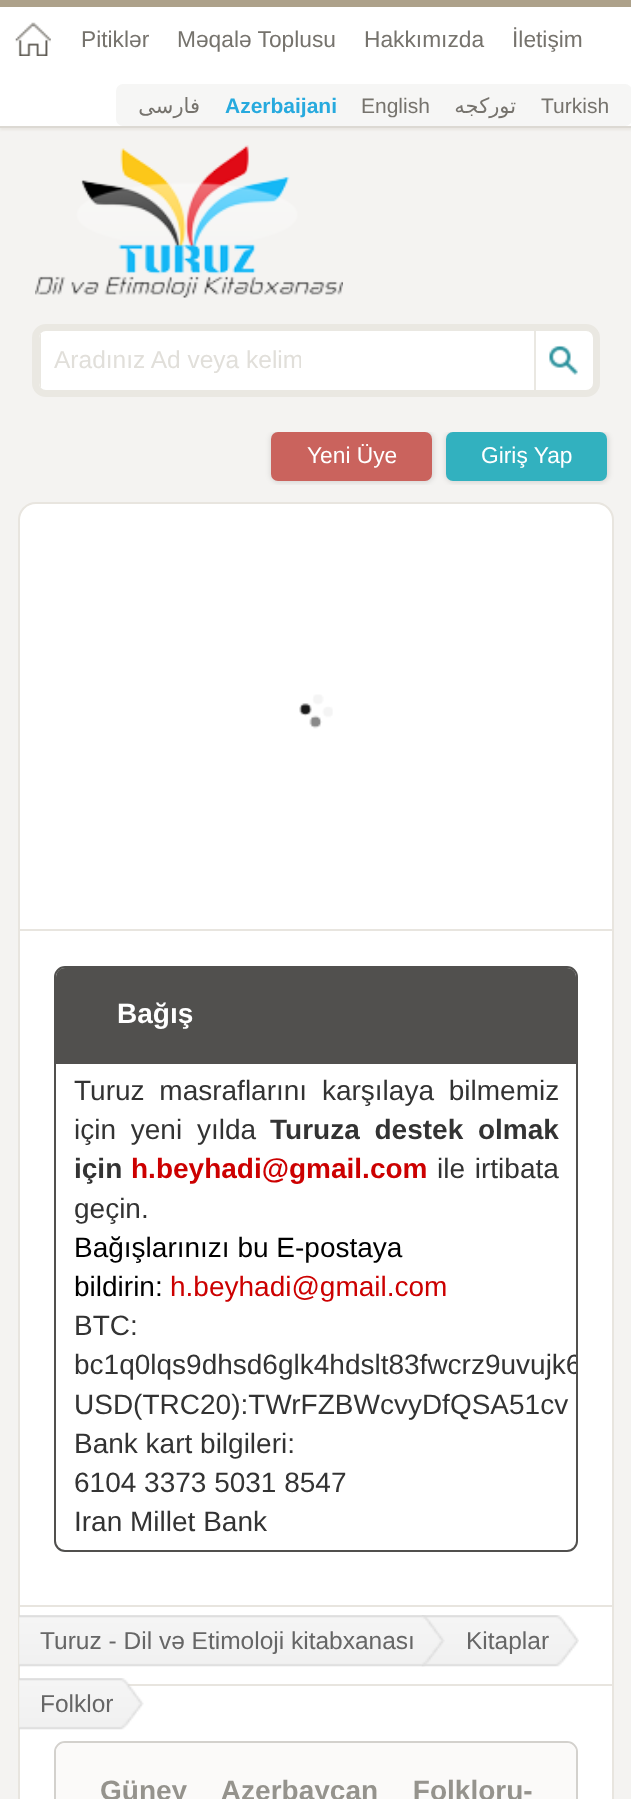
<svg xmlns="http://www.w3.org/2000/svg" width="631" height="1799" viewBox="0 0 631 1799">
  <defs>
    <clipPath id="clip1"><rect x="39" y="331" width="554" height="59" rx="7"/></clipPath>
    <clipPath id="clip2"><rect x="54" y="347" width="247" height="28"/></clipPath>
    <clipPath id="clip3"><rect x="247" y="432" width="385" height="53"/></clipPath>
    <clipPath id="clip4"><rect x="56" y="968" width="520" height="583" rx="9"/></clipPath>
  </defs>
  <rect width="100%" height="100%" fill="rgb(244,243,241)"/>
  <rect x="0" y="2" width="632" height="128" fill="rgba(214,210,203,0.4)" filter="blur(1px)"/>
  <rect x="0" y="7" width="631" height="119" fill="rgb(255,255,255)"/>
  <rect x="0" y="0" width="631" height="7" fill="rgb(173,161,138)"/>
  <rect x="0" y="126" width="631" height="2" fill="rgb(220,217,211)"/>
  <image x="15" y="22" width="36" height="34" href="pic1.png"/>
  <g font-family="Liberation Sans" font-size="22.75" fill="rgb(118,115,109)">
    <text x="81" y="47">Pitiklər</text>
    <text x="177" y="47">Məqalə Toplusu</text>
    <text x="364" y="47">Hakkımızda</text>
    <text x="512" y="47">İletişim</text>
  </g>
  <rect x="116" y="84" width="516" height="42" rx="7" fill="rgb(246,246,245)"/>
  <text x="200" y="113" font-family="DejaVu Sans" font-size="21" direction="rtl" fill="rgb(118,115,109)">فارسی</text>
  <text x="225" y="113" font-family="Liberation Sans" font-size="21" font-weight="bold" fill="rgb(39,170,222)">Azerbaijani</text>
  <text x="361" y="113" font-family="Liberation Sans" font-size="21" fill="rgb(118,115,109)">English</text>
  <text x="516" y="113" font-family="DejaVu Sans" font-size="21" direction="rtl" fill="rgb(118,115,109)">تورکجه</text>
  <text x="541" y="113" font-family="Liberation Sans" font-size="21" fill="rgb(118,115,109)">Turkish</text>
  <image x="35" y="145" width="308" height="153" href="pic2.png"/>
  <rect x="35.5" y="327.5" width="561" height="66" rx="10.5" fill="rgb(255,255,255)" stroke="rgb(234,232,226)" stroke-width="7"/>
  <g clip-path="url(#clip1)">
    <rect x="39" y="334" width="2" height="55" fill="rgb(234,232,226)"/>
  </g>
  <g clip-path="url(#clip2)">
    <text x="54" y="368" font-family="Liberation Sans" font-size="24.5" fill="rgb(225,223,218)">Aradınız Ad veya kelim</text>
  </g>
  <image x="549" y="345" width="29" height="30" href="pic3.png"/>
  <rect x="534" y="331" width="2" height="59" fill="rgb(234,232,226)"/>
  <g clip-path="url(#clip3)">
    <rect x="270" y="431" width="164" height="52" rx="9" fill="rgba(0,0,0,0.1)" filter="blur(2.5px)"/>
  </g>
  <rect x="271" y="432" width="161" height="49" rx="7" fill="rgb(202,99,93)"/>
  <text x="307" y="463" font-family="Liberation Sans" font-size="22.75" fill="rgb(255,255,255)">Yeni Üye</text>
  <g clip-path="url(#clip3)">
    <rect x="445" y="431" width="164" height="52" rx="9" fill="rgba(0,0,0,0.1)" filter="blur(2.5px)"/>
  </g>
  <rect x="446" y="432" width="161" height="49" rx="7" fill="rgb(50,177,191)"/>
  <text x="481" y="463" font-family="Liberation Sans" font-size="22.75" fill="rgb(255,255,255)">Giriş Yap</text>
  <path d="M36 503H596C605.5 503 613 510.5 613 520V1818H19V520C19 510.5 26.5 503 36 503Z" fill="rgb(255,255,255)" stroke="rgb(232,229,223)" stroke-width="2"/>
  <rect x="19" y="929" width="594" height="2" fill="rgb(232,229,223)"/>
  <image x="299" y="694" width="34" height="35" href="pic4.png"/>
  <rect x="19" y="1605" width="594" height="2" fill="rgb(232,229,223)"/>
  <rect x="55" y="967" width="522" height="584" rx="10" fill="none" stroke="rgb(81,80,78)" stroke-width="2"/>
  <path d="M65 968H567C572 968 576 972 576 977V1064H56V977C56 972 60 968 65 968Z" fill="rgb(81,80,78)"/>
  <text x="117" y="1023" font-family="Liberation Sans" font-size="28" font-weight="bold" fill="rgb(255,255,255)">Bağış</text>
  <g font-family="Liberation Sans" font-size="28" fill="rgb(51,51,51)">
    <text>
      <tspan x="74" y="1100" word-spacing="7">Turuz masraflarını karşılaya bilmemiz</tspan>
      <tspan x="74" y="1139" word-spacing="7">için yeni yılda</tspan>
    </text>
  </g>
  <g font-family="Liberation Sans" font-size="28" font-weight="bold" fill="rgb(51,51,51)">
    <text x="270" y="1139" word-spacing="7">Turuza destek olmak</text>
    <text x="74" y="1178">için</text>
  </g>
  <text x="131" y="1178" font-family="Liberation Sans" font-size="28" font-weight="bold" fill="rgb(204,0,0)">h.beyhadi@gmail.com</text>
  <g font-family="Liberation Sans" font-size="28" fill="rgb(51,51,51)">
    <text x="437" y="1178" word-spacing="2">ile irtibata</text>
    <text x="74" y="1218">geçin.</text>
  </g>
  <g font-family="Liberation Sans" font-size="28" fill="rgb(0,0,0)">
    <text>
      <tspan x="74" y="1257">Bağışlarınızı bu E-postaya</tspan>
      <tspan x="74" y="1296">bildirin:</tspan>
    </text>
  </g>
  <text x="170" y="1296" font-family="Liberation Sans" font-size="28" fill="rgb(204,0,0)">h.beyhadi@gmail.com</text>
  <text x="74" y="1335" font-family="Liberation Sans" font-size="28" fill="rgb(51,51,51)">BTC:</text>
  <g clip-path="url(#clip4)">
    <text x="74" y="1374" font-family="Liberation Sans" font-size="28" fill="rgb(51,51,51)">bc1q0lqs9dhsd6glk4hdslt83fwcrz9uvujk6</text>
  </g>
  <g font-family="Liberation Sans" font-size="28" fill="rgb(51,51,51)">
    <text>
      <tspan x="74" y="1414">USD(TRC20):TWrFZBWcvyDfQSA51cv</tspan>
      <tspan x="74" y="1453">Bank kart bilgileri:</tspan>
      <tspan x="74" y="1492">6104 3373 5031 8547</tspan>
      <tspan x="74" y="1531">Iran Millet Bank</tspan>
    </text>
  </g>
  <rect x="19" y="1684" width="594" height="2" fill="rgb(232,229,223)"/>
  <image x="421" y="1615" width="158" height="52" href="pic6.png"/>
  <image x="19" y="1615" width="426" height="52" href="pic5.png"/>
  <g font-family="Liberation Sans" font-size="24.5" fill="rgb(102,102,102)">
    <text x="40" y="1649">Turuz - Dil və Etimoloji kitabxanası</text>
    <text x="466" y="1649">Kitaplar</text>
  </g>
  <image x="19" y="1678" width="125" height="52" href="pic7.png"/>
  <text x="40" y="1712" font-family="Liberation Sans" font-size="24.5" fill="rgb(102,102,102)">Folklor</text>
  <rect x="55" y="1742" width="522" height="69" rx="10" fill="none" stroke="rgb(211,209,205)" stroke-width="2"/>
  <path d="M65 1743H567C572 1743 576 1747 576 1752V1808H56V1752C56 1747 60 1743 65 1743Z" fill="rgb(251,250,249)"/>
  <text x="100" y="1800" word-spacing="27" font-family="Liberation Sans" font-size="28" font-weight="bold" fill="rgb(149,147,141)">Güney Azerbaycan Folkloru-</text>
</svg>
